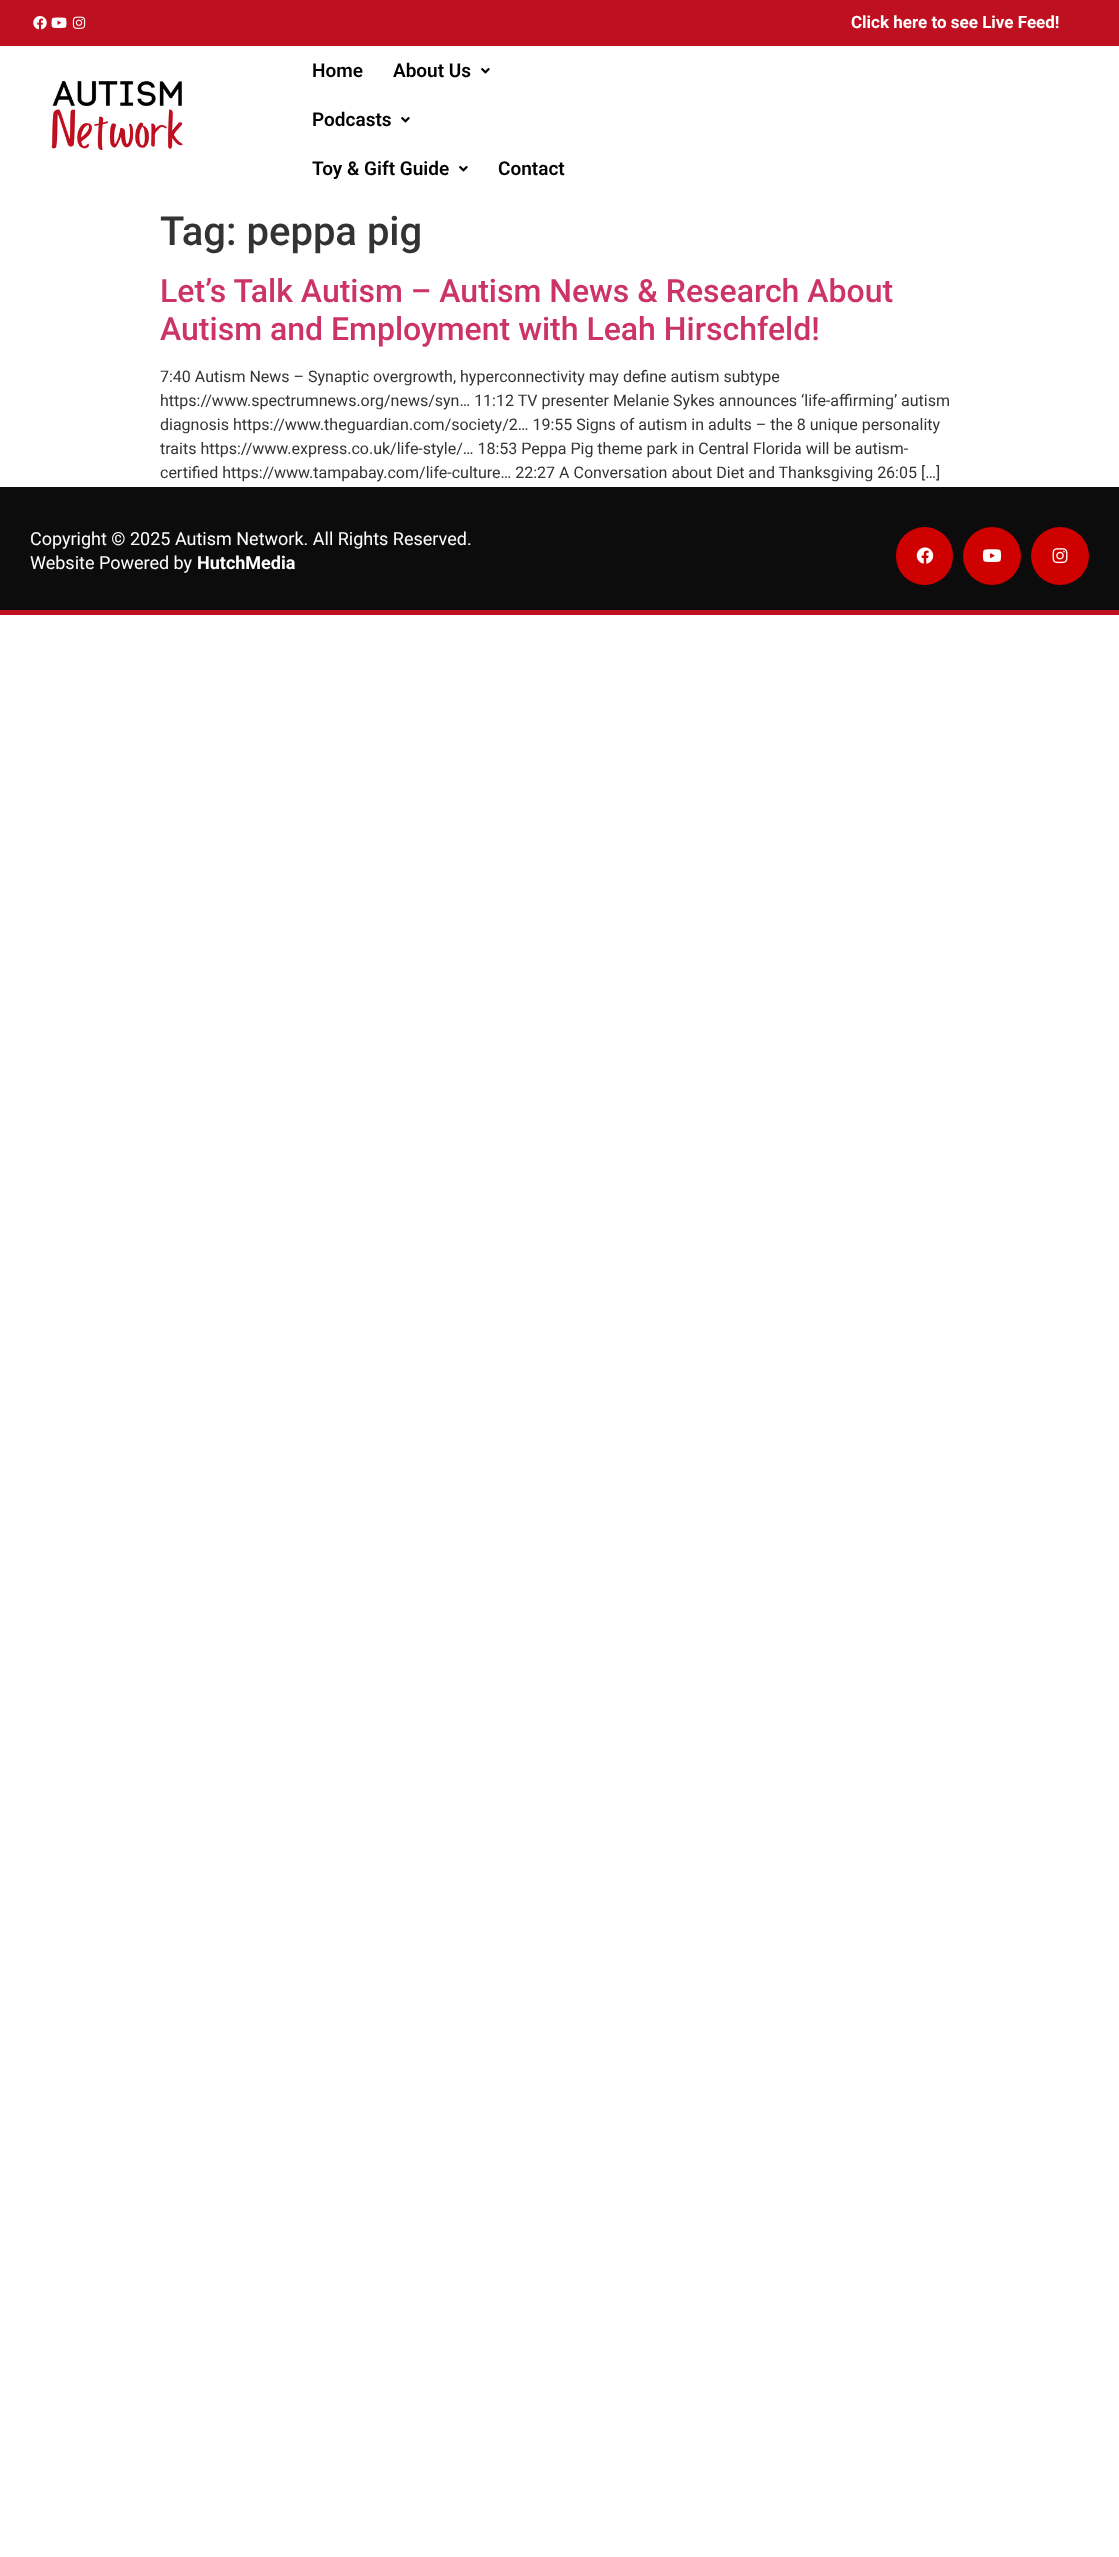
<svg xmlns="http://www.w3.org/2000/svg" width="1119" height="2557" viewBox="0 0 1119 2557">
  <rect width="100%" height="100%" fill="rgb(255,255,255)"/>
  <rect x="0" y="0" width="1119" height="46" fill="rgb(191,16,33)"/>
  <image x="33" y="16" width="14" height="14" href="pic1.png"/>
  <image x="51" y="17" width="16" height="11" href="pic2.png"/>
  <image x="72" y="16" width="14" height="13" href="pic3.png"/>
  <text x="851" y="28" font-family="Roboto" font-size="17" font-weight="bold" fill="rgb(255,255,255)">Click here to see Live Feed!</text>
  <image x="51" y="80" width="132" height="71" href="pic4.png"/>
  <g font-family="Roboto" font-size="19" font-weight="600" fill="rgb(0,0,0)">
    <text x="312" y="77">Home</text>
    <text x="393" y="77">About Us</text>
  </g>
  <image x="481" y="68" width="9" height="6" href="pic5.png"/>
  <text x="312" y="126" font-family="Roboto" font-size="19" font-weight="600" fill="rgb(0,0,0)">Podcasts</text>
  <image x="401" y="117" width="9" height="6" href="pic5.png"/>
  <text x="312" y="175" font-family="Roboto" font-size="19" font-weight="600" fill="rgb(0,0,0)">Toy &amp; Gift Guide</text>
  <image x="459" y="166" width="9" height="6" href="pic5.png"/>
  <text x="498" y="175" font-family="Roboto" font-size="19" font-weight="600" fill="rgb(0,0,0)">Contact</text>
  <text x="160" y="245" font-family="Roboto" font-size="40" font-weight="500" fill="rgb(51,51,51)">Tag: peppa pig</text>
  <g font-family="Roboto" font-size="32" font-weight="500" fill="rgb(204,51,102)">
    <text>
      <tspan x="160" y="302">Let’s Talk Autism – Autism News &amp; Research About</tspan>
      <tspan x="160" y="340">Autism and Employment with Leah Hirschfeld!</tspan>
    </text>
  </g>
  <g font-family="Roboto" font-size="16" fill="rgb(51,51,51)">
    <text>
      <tspan x="160" y="382">7:40 Autism News – Synaptic overgrowth, hyperconnectivity may define autism subtype</tspan>
      <tspan x="160" y="406">https://www.spectrumnews.org/news/syn… 11:12 TV presenter Melanie Sykes announces ‘life-affirming’ autism</tspan>
      <tspan x="160" y="430">diagnosis https://www.theguardian.com/society/2… 19:55 Signs of autism in adults – the 8 unique personality</tspan>
      <tspan x="160" y="454">traits https://www.express.co.uk/life-style/… 18:53 Peppa Pig theme park in Central Florida will be autism-</tspan>
      <tspan x="160" y="478">certified https://www.tampabay.com/life-culture… 22:27 A Conversation about Diet and Thanksgiving 26:05 […]</tspan>
    </text>
  </g>
  <rect x="0" y="487" width="1119" height="123" fill="rgb(12,12,12)"/>
  <rect x="0" y="610" width="1119" height="5" fill="rgb(191,16,33)"/>
  <g font-family="Roboto" font-size="18" fill="rgb(255,255,255)">
    <text>
      <tspan x="30" y="545">Copyright © 2025 Autism Network. All Rights Reserved.</tspan>
      <tspan x="30" y="569">Website Powered by</tspan>
    </text>
  </g>
  <text x="197" y="569" font-family="Roboto" font-size="18" font-weight="bold" fill="rgb(255,255,255)">HutchMedia</text>
  <rect x="896" y="527" width="57" height="58" rx="28.5" fill="rgb(207,0,0)"/>
  <image x="916" y="547" width="18" height="17" href="pic6.png"/>
  <circle cx="992" cy="556" r="29" fill="rgb(207,0,0)"/>
  <image x="982" y="549" width="20" height="13" href="pic7.png"/>
  <circle cx="1060" cy="556" r="29" fill="rgb(207,0,0)"/>
  <image x="1052" y="548" width="16" height="16" href="pic8.png"/>
</svg>
